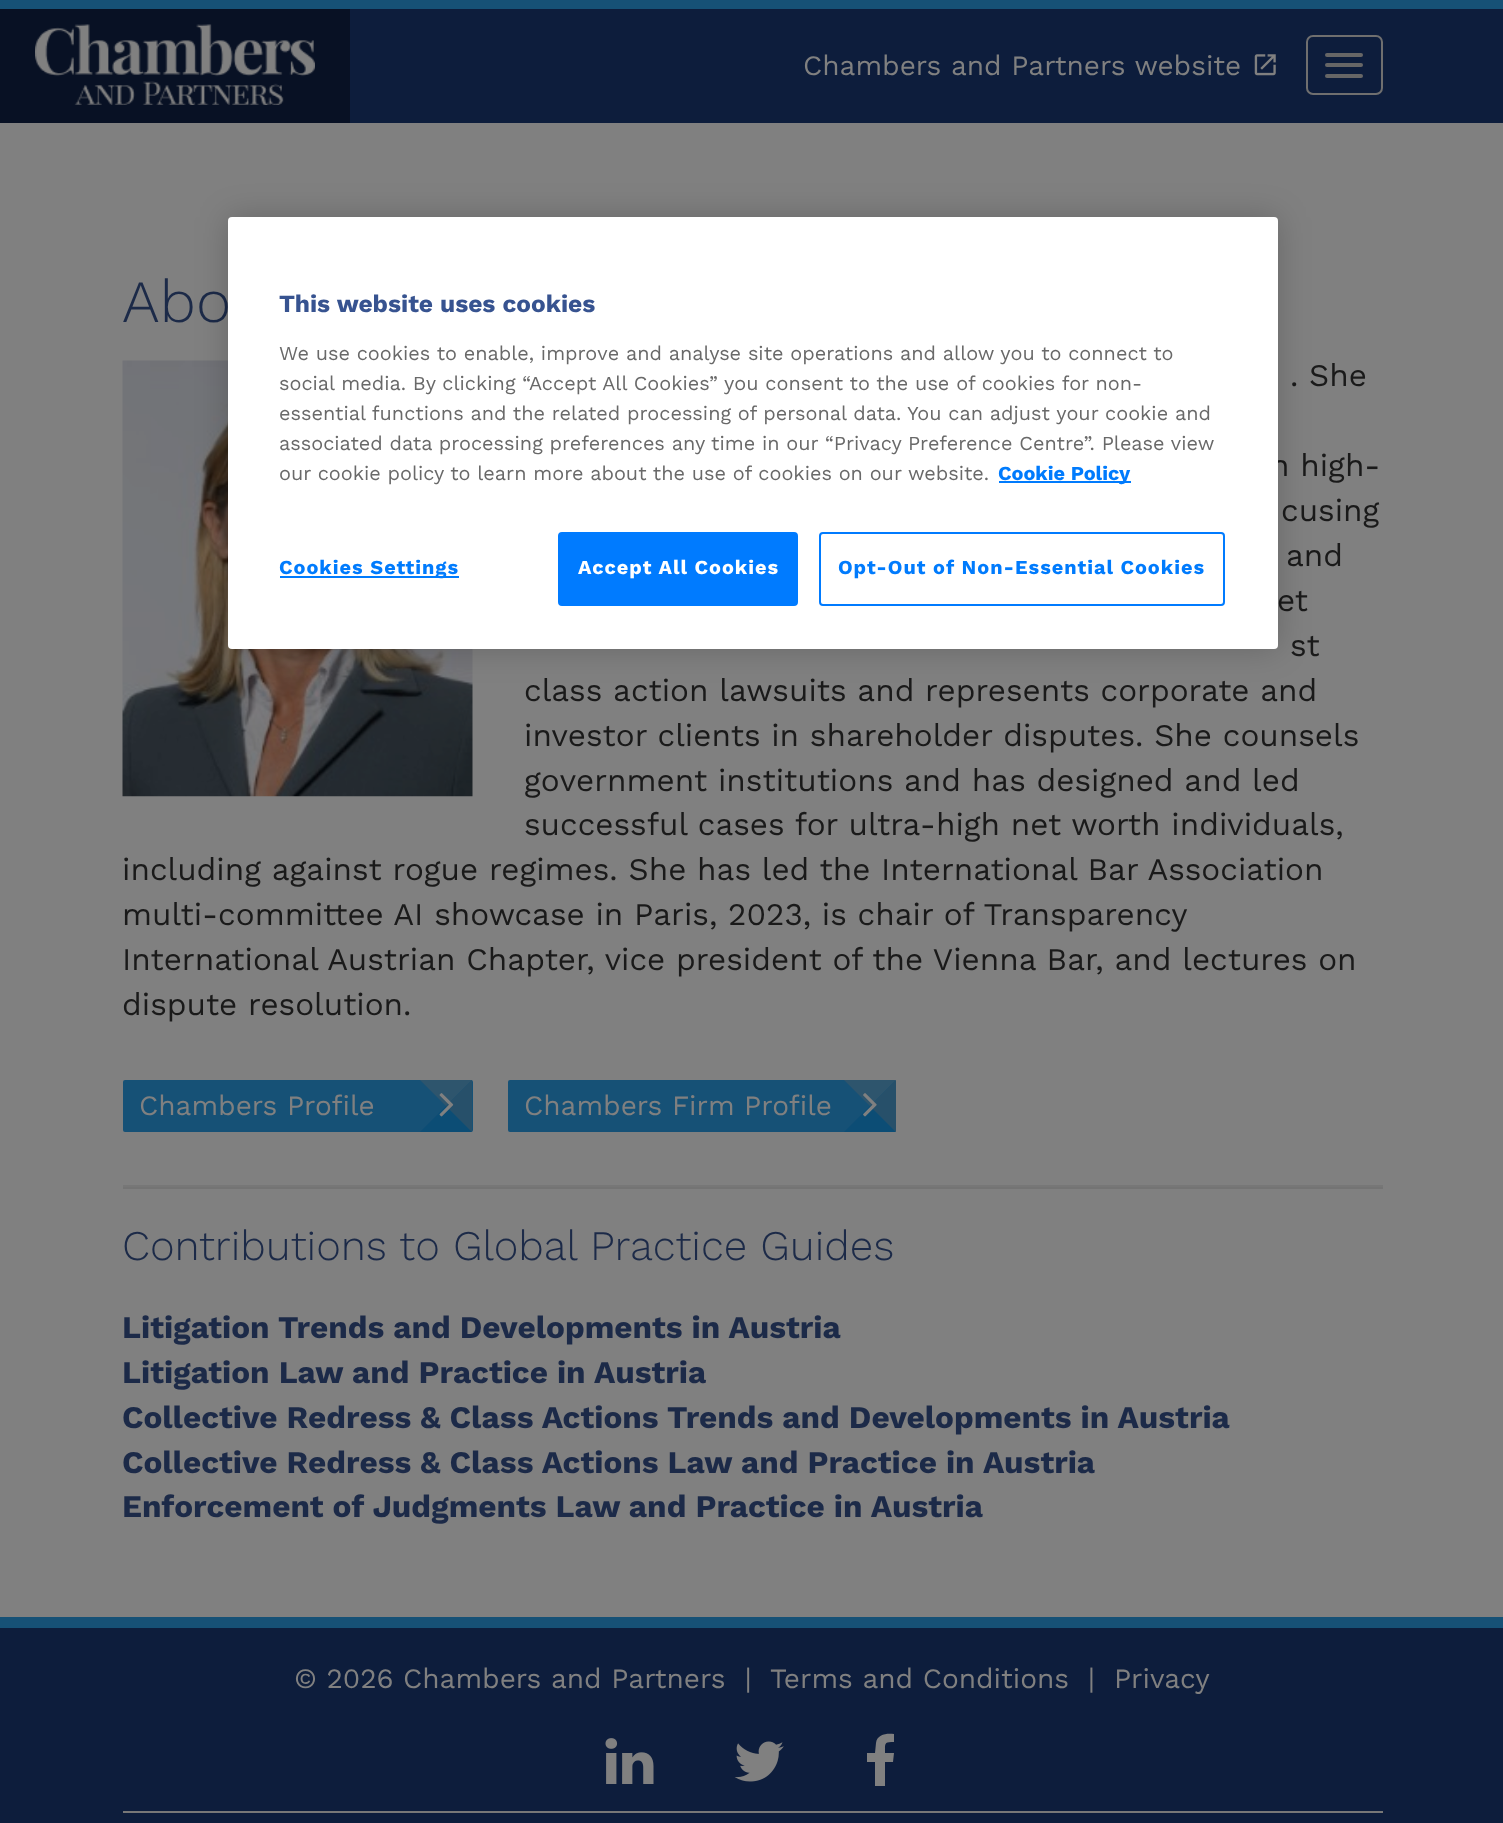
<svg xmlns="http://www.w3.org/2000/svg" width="1503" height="1823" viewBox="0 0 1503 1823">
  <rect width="100%" height="100%" fill="rgb(128,128,128)"/>
  <rect x="0" y="0" width="1503" height="9" fill="rgb(22,81,118)"/>
  <rect x="0" y="9" width="350" height="114" fill="rgb(8,17,36)"/>
  <image x="35" y="24" width="280" height="81" href="pic1.png"/>
  <rect x="350" y="9" width="1153" height="114" fill="rgb(13,29,60)"/>
  <text x="803" y="75" font-family="Work Sans" font-size="28" fill="rgb(128,128,128)">Chambers and Partners website</text>
  <image x="1254" y="54" width="22" height="22" href="pic2.png"/>
  <rect x="1307" y="36" width="75" height="58" rx="6" fill="none" stroke="rgb(111,111,111)" stroke-width="2"/>
  <rect x="1325" y="53" width="38" height="4" rx="2" fill="rgb(102,102,102)"/>
  <rect x="1325" y="63" width="38" height="4" rx="2" fill="rgb(102,102,102)"/>
  <rect x="1325" y="74" width="38" height="4" rx="2" fill="rgb(102,102,102)"/>
  <text x="122" y="322" font-family="Work Sans" font-size="60" font-weight="300" fill="rgb(28,42,72)">Abo</text>
  <image x="122" y="360" width="351" height="437" href="pic3.png"/>
  <g font-family="Work Sans" font-size="31.5" fill="rgb(26,26,26)">
    <text x="1290" y="386">. She</text>
    <text x="1270" y="476">n high-</text>
    <text x="1281" y="521">cusing</text>
    <text x="1286" y="566">and</text>
    <text x="1277" y="611">et</text>
    <text x="1290" y="656">st</text>
    <text>
      <tspan x="524" y="701">class action lawsuits and represents corporate and</tspan>
      <tspan x="524" y="746">investor clients in shareholder disputes. She counsels</tspan>
      <tspan x="524" y="791">government institutions and has designed and led</tspan>
      <tspan x="524" y="835">successful cases for ultra-high net worth individuals,</tspan>
    </text>
    <text>
      <tspan x="122" y="880">including against rogue regimes. She has led the International Bar Association</tspan>
      <tspan x="122" y="925">multi-committee AI showcase in Paris, 2023, is chair of Transparency</tspan>
      <tspan x="122" y="970">International Austrian Chapter, vice president of the Vienna Bar, and lectures on</tspan>
      <tspan x="122" y="1015">dispute resolution.</tspan>
    </text>
  </g>
  <rect x="123" y="1080" width="350" height="52" rx="2" fill="rgb(22,81,118)"/>
  <text x="139" y="1115" font-family="Work Sans" font-size="28" fill="rgb(128,128,128)">Chambers Profile</text>
  <path d="M420 1080H472L446 1106Z" fill="rgb(46,85,109)"/>
  <path d="M472 1132H420L446 1106Z" fill="rgb(12,77,117)"/>
  <path d="M472 1080V1132L446 1106Z" fill="rgb(39,80,106)"/>
  <image x="439" y="1093" width="15" height="24" href="pic4.png"/>
  <rect x="508" y="1080" width="388" height="52" rx="2" fill="rgb(22,81,118)"/>
  <text x="524" y="1115" font-family="Work Sans" font-size="28" fill="rgb(128,128,128)">Chambers Firm Profile</text>
  <path d="M844 1080H896L870 1106Z" fill="rgb(46,85,109)"/>
  <path d="M896 1132H844L870 1106Z" fill="rgb(12,77,117)"/>
  <path d="M896 1080V1132L870 1106Z" fill="rgb(39,80,106)"/>
  <image x="863" y="1093" width="14" height="24" href="pic5.png"/>
  <rect x="123" y="1187" width="1260" height="2" fill="rgb(116,116,116)"/>
  <rect x="123" y="1185" width="1260" height="2" fill="rgb(119,119,119)"/>
  <text x="122" y="1260" font-family="Work Sans" font-size="42" font-weight="300" fill="rgb(28,42,72)">Contributions to Global Practice Guides</text>
  <g font-family="Work Sans" font-size="31.5" font-weight="bold" fill="rgb(28,42,72)">
    <text x="122" y="1338">Litigation</text>
    <text x="278" y="1338">Trends and Developments in Austria</text>
    <text>
      <tspan x="122" y="1383">Litigation Law and Practice in Austria</tspan>
      <tspan x="122" y="1428">Collective Redress &amp; Class Actions Trends and Developments in Austria</tspan>
      <tspan x="122" y="1473">Collective Redress &amp; Class Actions Law and Practice in Austria</tspan>
      <tspan x="122" y="1517">Enforcement of Judgments Law and Practice in Austria</tspan>
    </text>
  </g>
  <rect x="0" y="1628" width="1503" height="195" fill="rgb(13,29,60)"/>
  <rect x="0" y="1617" width="1503" height="11" fill="rgb(22,81,118)"/>
  <g font-family="Work Sans" font-size="28" fill="rgb(128,128,128)">
    <text x="294" y="1688">© 2026</text>
    <text x="403" y="1688" xml:space="preserve">Chambers and Partners  |</text>
    <text x="770" y="1688">Terms and Conditions</text>
    <text x="1088" y="1688">|</text>
    <text x="1114" y="1688">Privacy</text>
  </g>
  <image x="605" y="1738" width="49" height="46" href="pic6.png"/>
  <image x="734" y="1741" width="50" height="41" href="pic7.png"/>
  <path d="M894 1734V1742C884 1742 885 1743 885 1753H894L893 1762H885V1786H875V1762H867V1753H875L876 1743C877 1734 887 1733 894 1734Z" fill="rgb(128,128,128)"/>
  <rect x="123" y="1811" width="1260" height="2" fill="rgb(119,119,119)"/>
  <rect x="228" y="217" width="1050" height="432" rx="4" fill="rgba(0,0,0,0.2)" filter="blur(16px)"/>
  <rect x="228" y="217" width="1050" height="432" rx="4" fill="rgb(255,255,255)"/>
  <text x="279" y="312" font-family="Work Sans" font-size="24.5" font-weight="bold" fill="rgb(55,83,144)">This website uses cookies</text>
  <g font-family="Work Sans" font-size="19.9" fill="rgb(105,105,105)">
    <text>
      <tspan x="279" y="360">We use cookies to enable, improve and analyse site operations and allow you to connect to</tspan>
      <tspan x="279" y="390">social media. By clicking “Accept All Cookies” you consent to the use of cookies for non-</tspan>
      <tspan x="279" y="420">essential functions and the related processing of personal data. You can adjust your cookie and</tspan>
      <tspan x="279" y="450">associated data processing preferences any time in our “Privacy Preference Centre”. Please view</tspan>
      <tspan x="279" y="480">our cookie policy to learn more about the use of cookies on our website.</tspan>
    </text>
  </g>
  <rect x="999" y="481" width="132" height="2" fill="rgb(0,123,253)"/>
  <text x="998" y="480" font-family="Work Sans" font-size="19.9" font-weight="bold" fill="rgb(0,123,253)">Cookie Policy</text>
  <rect x="280" y="576" width="179" height="2" fill="rgb(0,123,253)"/>
  <text x="279" y="574" font-family="Work Sans" font-size="19.9" font-weight="bold" letter-spacing="1" fill="rgb(0,123,253)">Cookies Settings</text>
  <rect x="559" y="533" width="238" height="72" rx="3" fill="rgb(0,123,255)" stroke="rgb(0,123,255)" stroke-width="2"/>
  <text x="578" y="574" font-family="Work Sans" font-size="19.9" font-weight="bold" letter-spacing="1" fill="rgb(255,255,255)">Accept All Cookies</text>
  <rect x="820" y="533" width="404" height="72" rx="3" fill="none" stroke="rgb(0,123,255)" stroke-width="2"/>
  <text x="838" y="574" font-family="Work Sans" font-size="19.9" font-weight="bold" letter-spacing="1" fill="rgb(0,123,253)">Opt-Out of Non-Essential Cookies</text>
</svg>
